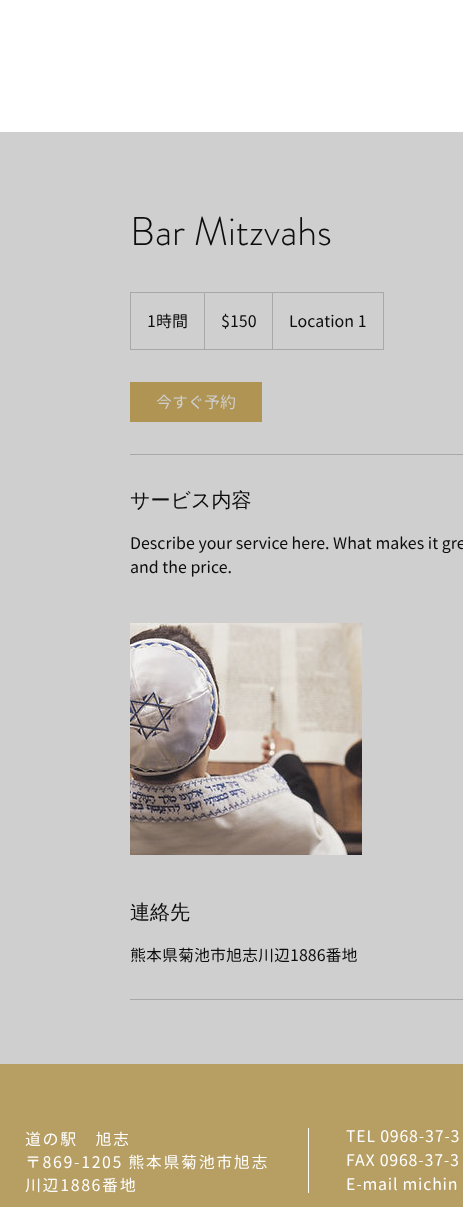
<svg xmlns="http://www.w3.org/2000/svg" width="463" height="1207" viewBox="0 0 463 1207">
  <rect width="100%" height="100%" fill="rgb(255,255,255)"/>
  <rect x="0" y="132" width="463" height="932" fill="rgb(207,207,207)"/>
  <text x="130" y="245" font-family="'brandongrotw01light'" font-size="40" font-weight="300" fill="rgb(13,13,13)">Bar Mitzvahs</text>
  <rect x="130.5" y="292.5" width="253" height="57" fill="none" stroke="rgb(168,168,168)"/>
  <text x="147" y="327" font-family="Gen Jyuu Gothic" font-size="16" fill="rgb(13,13,13)">1時間</text>
  <path d="M204 349V292L205 293V349Z" fill="rgb(168,168,168)"/>
  <text x="221" y="327" font-family="Gen Jyuu Gothic" font-size="16" fill="rgb(13,13,13)">$150</text>
  <path d="M272 349V292L273 293V349Z" fill="rgb(168,168,168)"/>
  <text x="289" y="327" font-family="Gen Jyuu Gothic" font-size="16" fill="rgb(13,13,13)">Location 1</text>
  <rect x="130" y="382" width="132" height="40" fill="rgb(175,148,83)"/>
  <text x="156" y="408" font-family="Gen Jyuu Gothic" font-size="16" fill="rgb(207,207,207)">今すぐ予約</text>
  <rect x="130" y="454" width="333" height="1" fill="rgb(168,168,168)"/>
  <text x="130" y="507" font-family="WenQuanYi Zen Hei" font-size="20" font-weight="500" fill="rgb(13,13,13)">サービス内容</text>
  <g font-family="Gen Jyuu Gothic" font-size="16" fill="rgb(13,13,13)">
    <text>
      <tspan x="130" y="549">Describe your service here. What makes it gre</tspan>
      <tspan x="130" y="573">and the price.</tspan>
    </text>
  </g>
  <image x="130" y="623" width="232" height="232" href="pic1.png"/>
  <text x="130" y="919" font-family="WenQuanYi Zen Hei" font-size="20" font-weight="500" fill="rgb(13,13,13)">連絡先</text>
  <text x="130" y="961" font-family="Gen Jyuu Gothic" font-size="16" fill="rgb(13,13,13)">熊本県菊池市旭志川辺1886番地</text>
  <rect x="130" y="999" width="333" height="1" fill="rgb(168,168,168)"/>
  <rect x="0" y="1064" width="463" height="143" fill="rgb(183,159,100)"/>
  <g font-family="Gen Jyuu Gothic" font-size="16" letter-spacing="1.6" fill="rgb(254,254,254)">
    <text>
      <tspan x="25" y="1145">道の駅　旭志</tspan>
      <tspan x="25" y="1168">〒869-1205 熊本県菊池市旭志</tspan>
      <tspan x="25" y="1191">川辺1886番地</tspan>
    </text>
  </g>
  <rect x="308" y="1128" width="1" height="65" fill="rgb(254,254,254)"/>
  <g font-family="Gen Jyuu Gothic" font-size="16" letter-spacing="0.75" fill="rgb(254,254,254)">
    <text>
      <tspan x="346" y="1142">TEL 0968-37-3</tspan>
      <tspan x="346" y="1166">FAX 0968-37-3</tspan>
      <tspan x="346" y="1190">E-mail michin</tspan>
    </text>
  </g>
</svg>
